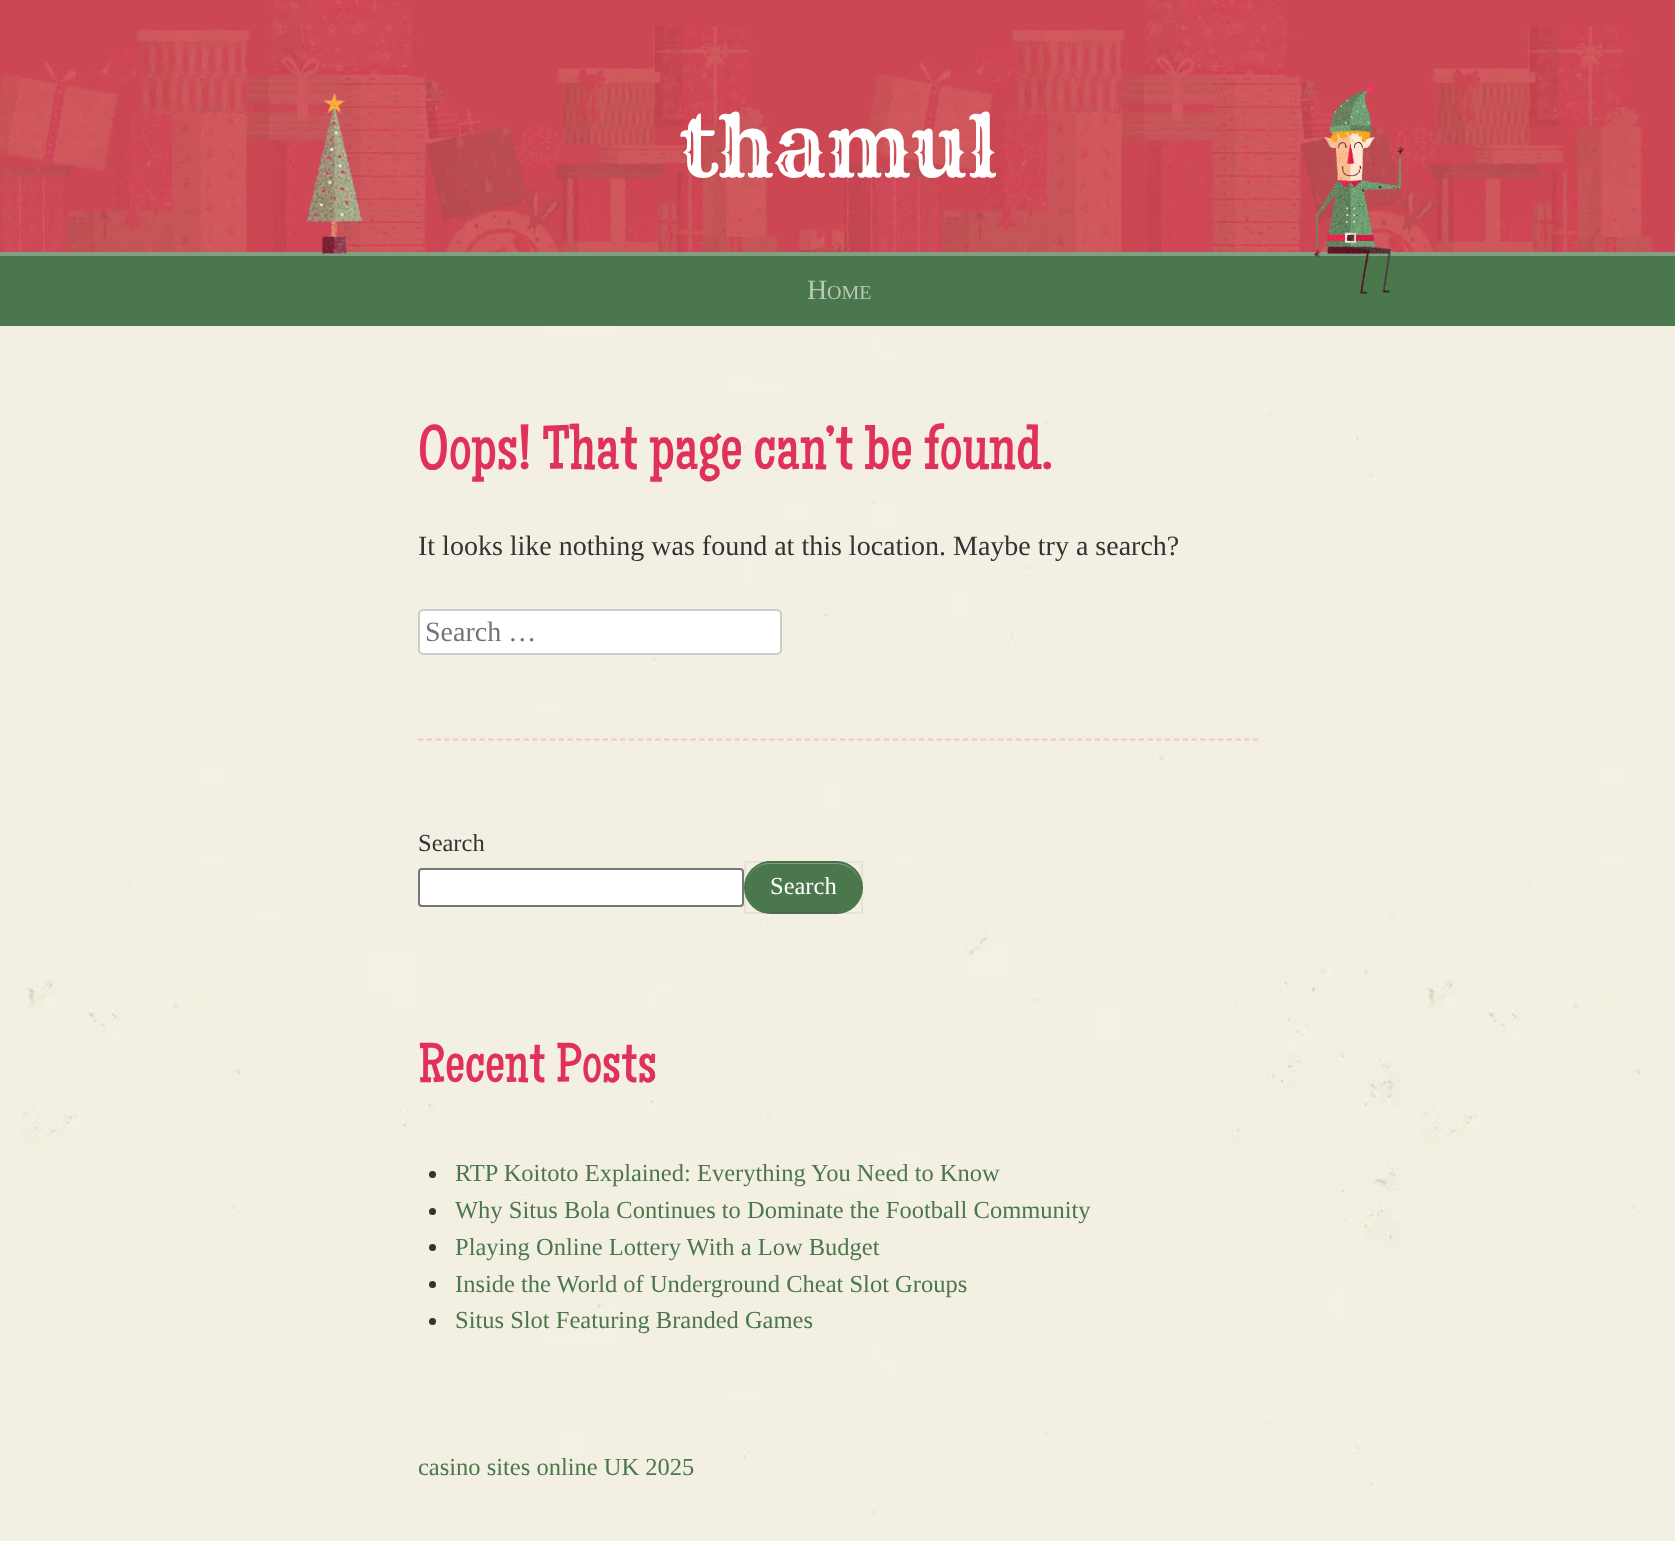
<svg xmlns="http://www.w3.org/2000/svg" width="1675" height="1541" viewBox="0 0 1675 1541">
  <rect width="100%" height="100%" fill="rgb(243,239,227)"/>
  <image x="22" y="326" width="1623" height="1188" href="pic1.png"/>
  <image x="0" y="0" width="1675" height="252" href="pic2.png"/>
  <rect x="0" y="252" width="1675" height="4" fill="rgb(129,160,130)"/>
  <image x="306" y="92" width="57" height="162" href="pic3.png"/>
  <text x="680" y="177" font-family="Rye" font-size="84" fill="rgb(255,255,255)">thamul</text>
  <rect x="0" y="256" width="1675" height="70" fill="rgb(75,119,76)"/>
  <image x="1314" y="84" width="90" height="210" href="pic4.png"/>
  <text x="807" y="299" font-family="Liberation Serif" font-size="28" fill="rgb(183,201,183)">H</text>
  <text x="827" y="299" font-family="Liberation Serif" font-size="20" fill="rgb(183,201,183)">OME</text>
  <text x="418" y="469" font-family="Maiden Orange" font-size="63" fill="rgb(224,49,91)">Oops! That page can’t be found.</text>
  <text x="418" y="555" font-family="Liberation Serif" font-size="28" fill="rgb(51,51,51)">It looks like nothing was found at this location. Maybe try a search?</text>
  <rect x="419" y="610" width="362" height="44" rx="4" fill="rgb(255,255,255)" stroke="rgb(204,204,204)" stroke-width="2"/>
  <text x="425" y="641" font-family="Liberation Serif" font-size="28" fill="rgb(117,117,117)">Search …</text>
  <path d="M418 739.5H1258" fill="none" stroke="rgb(239,201,200)" stroke-width="1.8" stroke-dasharray="5.25 3.54"/>
  <text x="418" y="851" font-family="Liberation Serif" font-size="24.5" fill="rgb(51,51,51)">Search</text>
  <rect x="419" y="869" width="324" height="37" rx="3" fill="rgb(255,255,255)" stroke="rgb(118,118,118)" stroke-width="2"/>
  <rect x="744" y="861" width="119" height="53" rx="26.5" fill="rgb(75,119,76)"/>
  <path d="M770 864H836C850 864 861 875 861 888C861 874 850 863 836 863H770C757 863 746 874 746 888C746 875 756 864 770 864Z" fill="rgb(129,160,130)"/>
  <rect x="745" y="862" width="117" height="51" fill="none" stroke="rgba(0,0,0,0.05)" stroke-width="2"/>
  <text x="770" y="894" font-family="Liberation Serif" font-size="24.5" fill="rgb(255,255,255)">Search</text>
  <text x="418" y="1082" font-family="Maiden Orange" font-size="56" fill="rgb(224,49,91)">Recent Posts</text>
  <circle cx="432.5" cy="1174.5" r="3.5" fill="rgb(51,51,51)"/>
  <text x="455" y="1181" font-family="Liberation Serif" font-size="24.5" fill="rgb(75,119,76)">RTP Koitoto Explained: Everything You Need to Know</text>
  <circle cx="432.5" cy="1211.5" r="3.5" fill="rgb(51,51,51)"/>
  <text x="455" y="1218" font-family="Liberation Serif" font-size="24.5" fill="rgb(75,119,76)">Why Situs Bola Continues to Dominate the Football Community</text>
  <circle cx="432.5" cy="1247.5" r="3.5" fill="rgb(51,51,51)"/>
  <text x="455" y="1255" font-family="Liberation Serif" font-size="24.5" fill="rgb(75,119,76)">Playing Online Lottery With a Low Budget</text>
  <circle cx="432.5" cy="1284.5" r="3.5" fill="rgb(51,51,51)"/>
  <text x="455" y="1292" font-family="Liberation Serif" font-size="24.5" fill="rgb(75,119,76)">Inside the World of Underground Cheat Slot Groups</text>
  <circle cx="432.5" cy="1321.5" r="3.5" fill="rgb(51,51,51)"/>
  <g font-family="Liberation Serif" font-size="24.5" fill="rgb(75,119,76)">
    <text x="455" y="1328">Situs Slot Featuring Branded Games</text>
    <text x="418" y="1475">casino sites online UK 2025</text>
  </g>
</svg>
